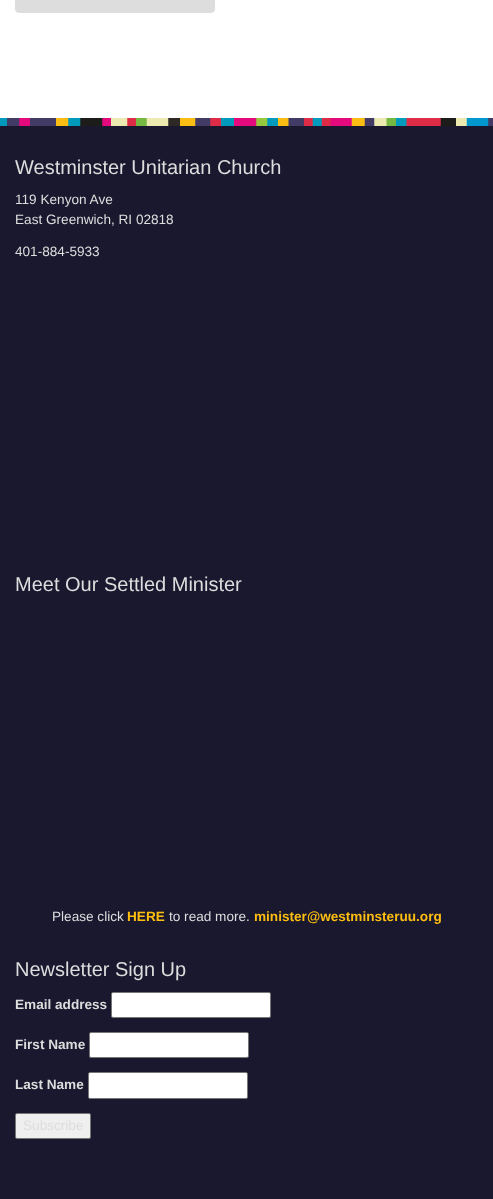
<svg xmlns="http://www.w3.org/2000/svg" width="493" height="1199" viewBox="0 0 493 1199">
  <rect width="100%" height="100%" fill="rgb(255,255,255)"/>
  <rect x="15.5" y="-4.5" width="199" height="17" rx="3.5" fill="rgb(221,221,221)" stroke="rgb(221,221,221)"/>
  <rect x="0" y="126" width="493" height="1073" fill="rgb(25,24,47)"/>
  <image x="0" y="118" width="493" height="8" href="pic1.png"/>
  <text x="15" y="174" font-family="Liberation Sans" font-size="20" fill="rgb(221,221,221)">Westminster Unitarian Church</text>
  <g font-family="Liberation Sans" font-size="13.6" fill="rgb(221,221,221)">
    <text>
      <tspan x="15" y="204">119 Kenyon Ave</tspan>
      <tspan x="15" y="224">East Greenwich, RI 02818</tspan>
    </text>
    <text x="15" y="256">401-884-5933</text>
  </g>
  <text x="15" y="591" font-family="Liberation Sans" font-size="20" fill="rgb(221,221,221)">Meet Our Settled Minister</text>
  <text x="52" y="921" font-family="Liberation Sans" font-size="13.6" fill="rgb(221,221,221)">Please click</text>
  <text x="127" y="921" font-family="Liberation Sans" font-size="13.6" font-weight="bold" fill="rgb(254,190,16)">HERE</text>
  <text x="169" y="921" font-family="Liberation Sans" font-size="13.6" fill="rgb(221,221,221)">to read more.</text>
  <text x="254" y="921" font-family="Liberation Sans" font-size="13.6" font-weight="bold" fill="rgb(254,190,16)">minister@westminsteruu.org</text>
  <text x="15" y="976" font-family="Liberation Sans" font-size="20" fill="rgb(221,221,221)">Newsletter Sign Up</text>
  <text x="15" y="1009" font-family="Liberation Sans" font-size="13.6" font-weight="bold" fill="rgb(221,221,221)">Email address</text>
  <rect x="111.5" y="992.5" width="159" height="25" rx="1.5" fill="rgb(255,255,255)" stroke="rgb(118,118,118)"/>
  <text x="15" y="1049" font-family="Liberation Sans" font-size="13.6" font-weight="bold" fill="rgb(221,221,221)">First Name</text>
  <rect x="89.5" y="1032.5" width="159" height="25" rx="1.5" fill="rgb(255,255,255)" stroke="rgb(118,118,118)"/>
  <text x="15" y="1089" font-family="Liberation Sans" font-size="13.6" font-weight="bold" fill="rgb(221,221,221)">Last Name</text>
  <rect x="88.5" y="1072.5" width="159" height="26" rx="1.5" fill="rgb(255,255,255)" stroke="rgb(118,118,118)"/>
  <rect x="15.5" y="1113.5" width="75" height="25" rx="1.5" fill="rgb(239,239,239)" stroke="rgb(118,118,118)"/>
  <text x="23" y="1130" font-family="Liberation Sans" font-size="13.6" fill="rgb(221,221,221)">Subscribe</text>
</svg>
